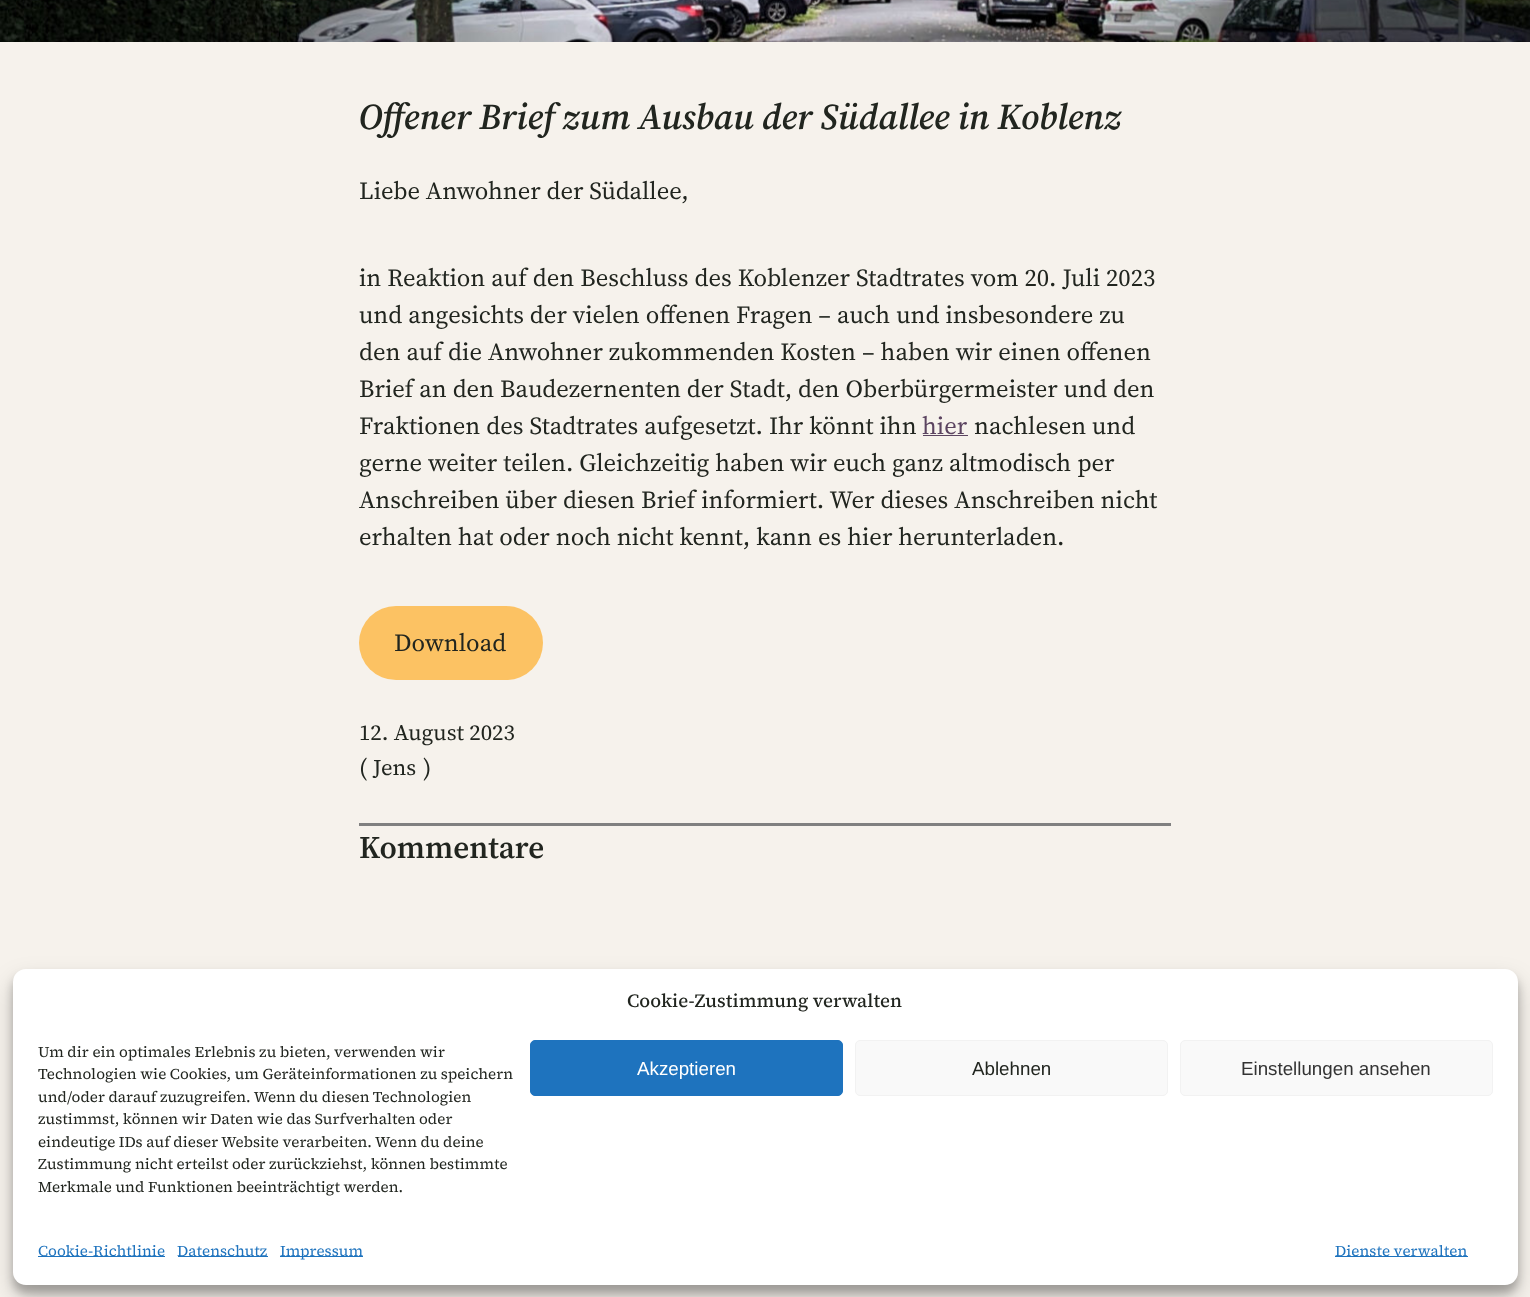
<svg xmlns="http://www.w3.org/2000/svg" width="1530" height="1297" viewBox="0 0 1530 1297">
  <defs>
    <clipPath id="clip1"><rect x="38" y="1040" width="480" height="164"/></clipPath>
  </defs>
  <rect width="100%" height="100%" fill="rgb(246,242,236)"/>
  <image x="0" y="0" width="1530" height="42" href="pic1.png"/>
  <text x="359" y="129" font-family="'Source Serif 4'" font-size="36.4" font-weight="600" font-style="italic" fill="rgb(33,37,31)">Offener Brief zum Ausbau der Südallee in Koblenz</text>
  <g font-family="'Source Serif 4'" font-size="24.65" fill="rgb(33,37,31)">
    <text x="359" y="199">Liebe Anwohner der Südallee,</text>
    <text>
      <tspan x="359" y="286" word-spacing="0.25">in Reaktion auf den Beschluss des Koblenzer Stadtrates vom 20. Juli 2023</tspan>
      <tspan x="359" y="323" word-spacing="0.25">und angesichts der vielen offenen Fragen – auch und insbesondere zu</tspan>
      <tspan x="359" y="360" word-spacing="0.25">den auf die Anwohner zukommenden Kosten – haben wir einen offenen</tspan>
      <tspan x="359" y="397" word-spacing="0.25">Brief an den Baudezernenten der Stadt, den Oberbürgermeister und den</tspan>
      <tspan x="359" y="434" word-spacing="0.25">Fraktionen des Stadtrates aufgesetzt. Ihr könnt ihn</tspan>
    </text>
  </g>
  <text x="922" y="434" font-family="'Source Serif 4'" font-size="24.65" fill="rgb(91,68,96)">hier</text>
  <rect x="923" y="435" width="45" height="1" fill="rgb(91,68,96)"/>
  <g font-family="'Source Serif 4'" font-size="24.65" fill="rgb(33,37,31)">
    <text x="974" y="434">nachlesen und</text>
    <text>
      <tspan x="359" y="471" word-spacing="0.25">gerne weiter teilen. Gleichzeitig haben wir euch ganz altmodisch per</tspan>
      <tspan x="359" y="508" word-spacing="0.25">Anschreiben über diesen Brief informiert. Wer dieses Anschreiben nicht</tspan>
      <tspan x="359" y="545" word-spacing="0.25">erhalten hat oder noch nicht kennt, kann es hier herunterladen.</tspan>
    </text>
  </g>
  <rect x="359" y="606" width="184" height="74" rx="37" fill="rgb(252,194,99)"/>
  <text x="394" y="651" font-family="'Source Serif 4'" font-size="24.65" fill="rgb(33,37,31)">Download</text>
  <text x="359" y="740" font-family="'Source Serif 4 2'" font-size="22.25" fill="rgb(33,37,31)">12. August 2023</text>
  <text x="359" y="776" font-family="'Source Serif 4'" font-size="24.65" fill="rgb(33,37,31)">(</text>
  <text x="373" y="775" font-family="'Source Serif 4 2'" font-size="22.25" fill="rgb(33,37,31)">Jens</text>
  <text x="423" y="776" font-family="'Source Serif 4'" font-size="24.65" fill="rgb(33,37,31)">)</text>
  <rect x="359" y="823" width="812" height="3" fill="rgb(128,128,128)"/>
  <text x="359" y="858" font-family="'Source Serif 4'" font-size="31.5" font-weight="600" fill="rgb(33,37,31)">Kommentare</text>
  <rect x="13" y="976" width="1505" height="317" rx="13" fill="rgba(0,0,0,0.23)" filter="blur(4px)"/>
  <rect x="13" y="981" width="1505" height="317" rx="13" fill="rgba(0,0,0,0.19)" filter="blur(12.5px)"/>
  <rect x="13" y="969" width="1505" height="316" rx="13" fill="rgb(255,255,255)"/>
  <text x="627" y="1007" font-family="'Source Serif 4'" font-size="18.75" font-weight="500" fill="rgb(33,37,31)">Cookie-Zustimmung verwalten</text>
  <text x="38" y="1057" font-family="'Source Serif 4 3'" font-size="15" fill="rgb(33,37,31)">Um dir ein optimales Erlebnis zu bieten, verwenden wir</text>
  <g clip-path="url(#clip1)">
    <text x="38" y="1079" font-family="'Source Serif 4 3'" font-size="15" fill="rgb(33,37,31)">Technologien wie Cookies, um Geräteinformationen zu speichern</text>
  </g>
  <g font-family="'Source Serif 4 3'" font-size="15" fill="rgb(33,37,31)">
    <text>
      <tspan x="38" y="1102">und/oder darauf zuzugreifen. Wenn du diesen Technologien</tspan>
      <tspan x="38" y="1124">zustimmst, können wir Daten wie das Surfverhalten oder</tspan>
      <tspan x="38" y="1147">eindeutige IDs auf dieser Website verarbeiten. Wenn du deine</tspan>
      <tspan x="38" y="1169">Zustimmung nicht erteilst oder zurückziehst, können bestimmte</tspan>
      <tspan x="38" y="1192">Merkmale und Funktionen beeinträchtigt werden.</tspan>
    </text>
  </g>
  <rect x="530.5" y="1040.5" width="312" height="55" rx="4.5" fill="rgb(30,115,190)" stroke="rgb(30,115,190)"/>
  <text x="637" y="1075" font-family="Liberation Sans" font-size="18.75" fill="rgb(255,255,255)">Akzeptieren</text>
  <rect x="855.5" y="1040.5" width="312" height="55" rx="4.5" fill="rgb(249,249,249)" stroke="rgb(242,242,242)"/>
  <text x="972" y="1075" font-family="Liberation Sans" font-size="18.75" fill="rgb(33,37,31)">Ablehnen</text>
  <rect x="1180.5" y="1040.5" width="312" height="55" rx="4.5" fill="rgb(249,249,249)" stroke="rgb(242,242,242)"/>
  <text x="1241" y="1075" font-family="Liberation Sans" font-size="18.75" fill="rgb(51,51,51)">Einstellungen ansehen</text>
  <rect x="38" y="1256" width="127" height="1" fill="rgb(30,115,190)"/>
  <text x="38" y="1256" font-family="'Source Serif 4 3'" font-size="15" fill="rgb(30,115,190)">Cookie-Richtlinie</text>
  <rect x="178" y="1256" width="90" height="1" fill="rgb(30,115,190)"/>
  <text x="177" y="1256" font-family="'Source Serif 4 3'" font-size="15" fill="rgb(30,115,190)">Datenschutz</text>
  <rect x="280" y="1256" width="83" height="1" fill="rgb(30,115,190)"/>
  <text x="280" y="1256" font-family="'Source Serif 4 3'" font-size="15" fill="rgb(30,115,190)">Impressum</text>
  <rect x="1335" y="1256" width="133" height="1" fill="rgb(30,115,190)"/>
  <text x="1335" y="1256" font-family="'Source Serif 4 3'" font-size="15" fill="rgb(30,115,190)">Dienste verwalten</text>
</svg>
